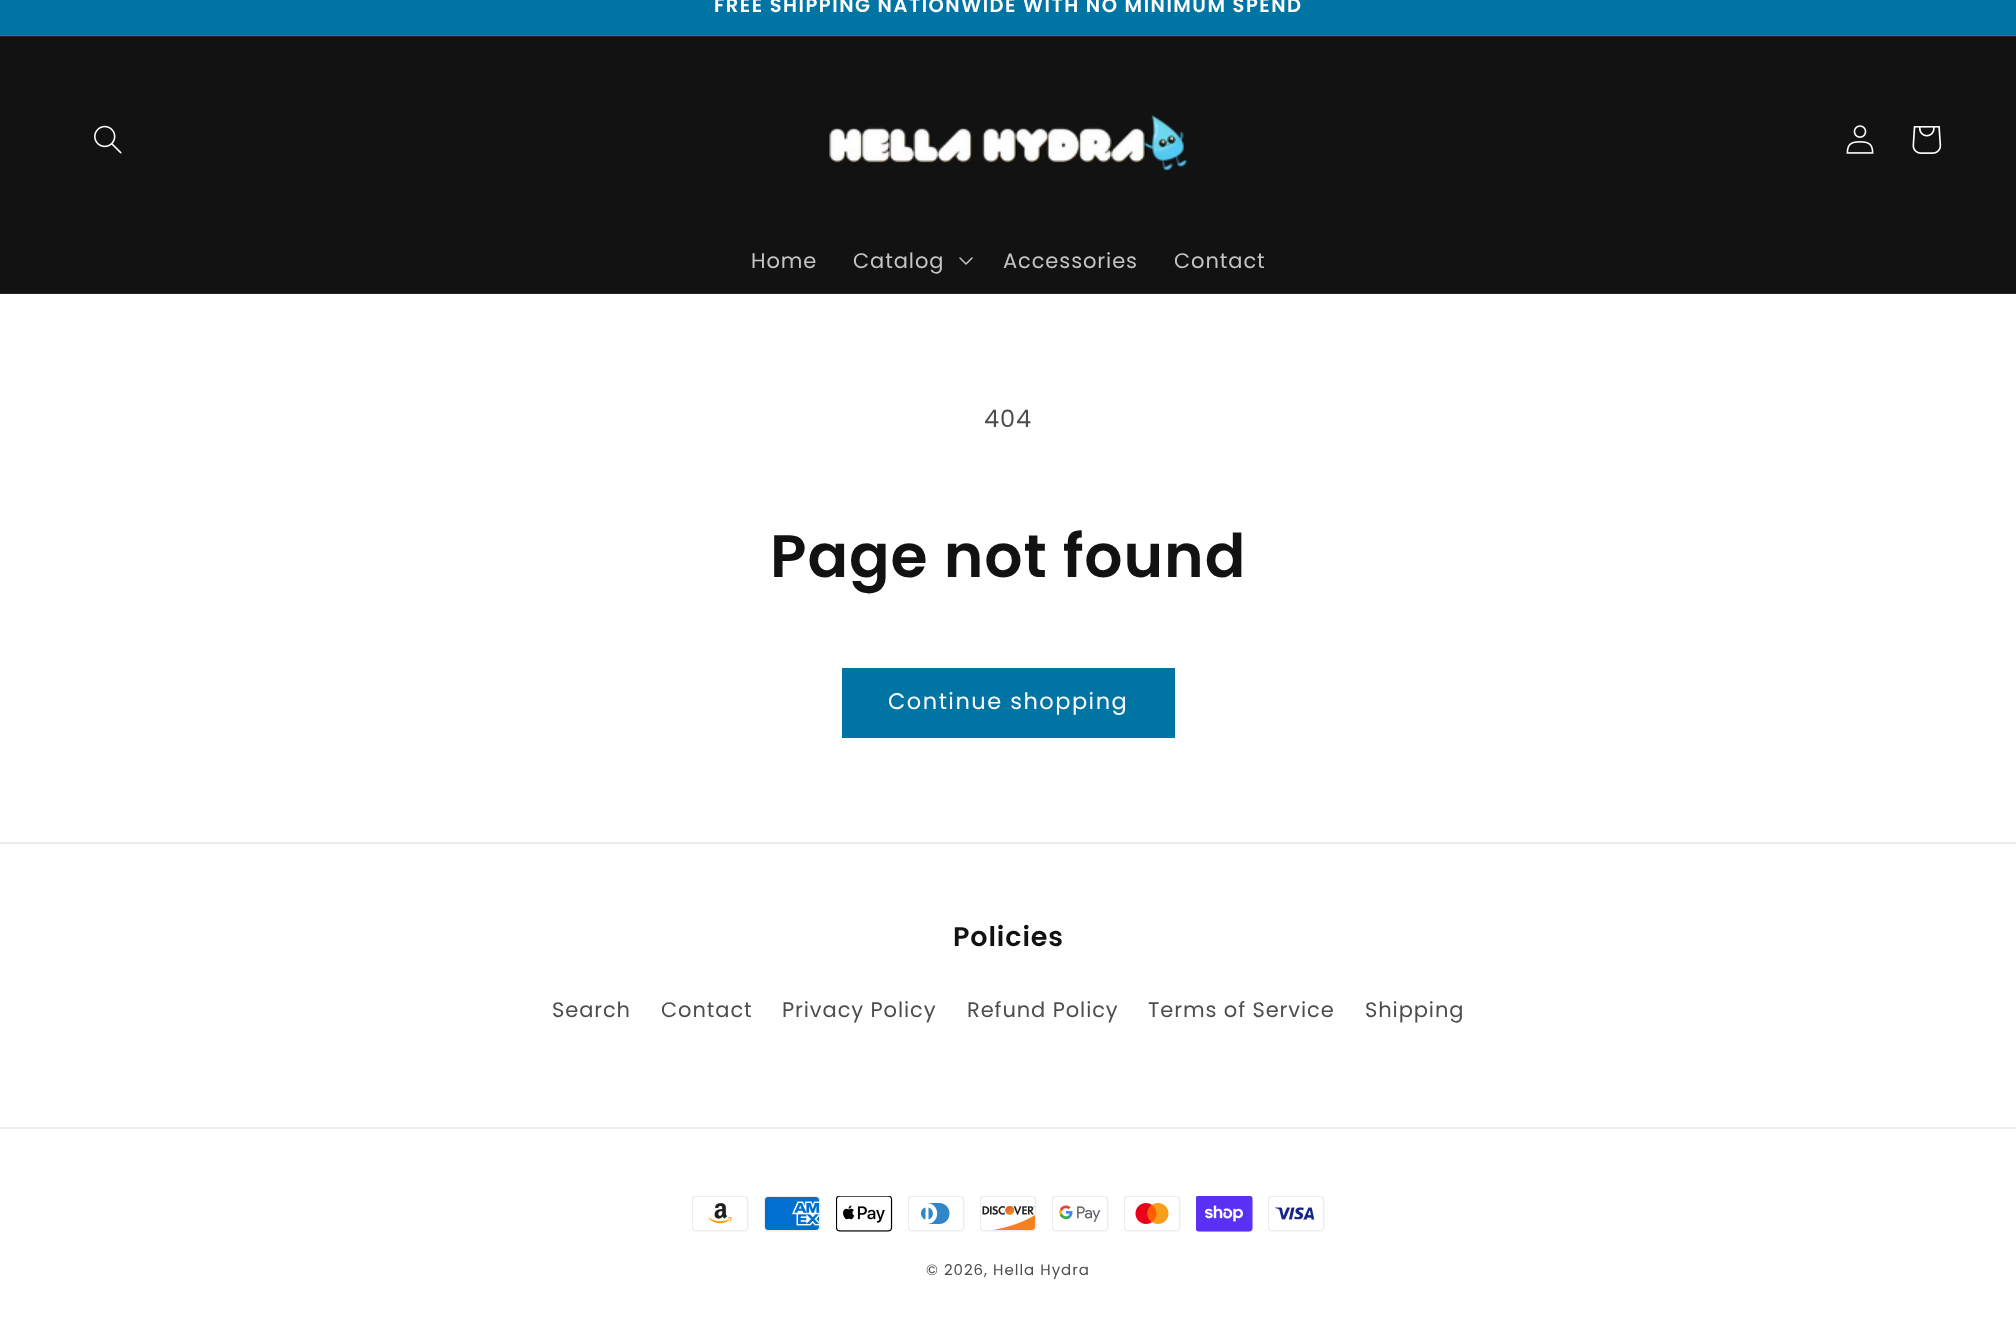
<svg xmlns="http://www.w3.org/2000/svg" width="2016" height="1318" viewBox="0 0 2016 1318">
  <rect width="100%" height="100%" fill="rgb(255,255,255)"/>
  <rect x="0" y="0" width="2016" height="35" fill="rgb(0,116,163)"/>
  <rect x="0" y="35" width="2016" height="1" fill="rgb(20,127,170)"/>
  <text x="714" y="12" font-family="Poppins" font-size="19.5" font-weight="600" letter-spacing="1.5" fill="rgb(255,255,255)">FREE SHIPPING NATIONWIDE WITH NO MINIMUM SPEND</text>
  <rect x="0" y="37" width="2016" height="256" fill="rgb(18,18,18)"/>
  <rect x="0" y="36" width="2016" height="1" fill="rgb(37,37,37)"/>
  <rect x="0" y="293" width="2016" height="1" fill="rgb(37,37,37)"/>
  <image x="94" y="125" width="28" height="29" href="pic1.png"/>
  <image x="829" y="115" width="358" height="56" href="pic2.png"/>
  <image x="1846" y="125" width="28" height="29" href="pic3.png"/>
  <image x="1912" y="126" width="30" height="28" href="pic4.png"/>
  <g font-family="Poppins" font-size="21" letter-spacing="0.9" fill="rgb(196,196,196)">
    <text x="751" y="268">Home</text>
    <text x="853" y="268">Catalog</text>
  </g>
  <image x="959" y="257" width="14" height="8" href="pic5.png"/>
  <g font-family="Poppins" font-size="21" letter-spacing="0.9" fill="rgb(196,196,196)">
    <text x="1003" y="268">Accessories</text>
    <text x="1174" y="268">Contact</text>
  </g>
  <text x="984" y="427" font-family="Poppins" font-size="24" letter-spacing="0.9" fill="rgb(77,77,77)">404</text>
  <text x="770" y="577" font-family="Poppins" font-size="60" font-weight="600" letter-spacing="0.9" fill="rgb(18,18,18)">Page not found</text>
  <rect x="843" y="669" width="331" height="68" fill="none" stroke="rgb(0,116,163)" stroke-width="2"/>
  <rect x="844" y="670" width="329" height="66" fill="rgb(0,116,163)"/>
  <text x="888" y="709" font-family="Poppins" font-size="22.5" letter-spacing="1.5" fill="rgb(255,255,255)">Continue shopping</text>
  <rect x="0" y="842" width="2016" height="2" fill="rgb(236,236,236)"/>
  <text x="953" y="946" font-family="Poppins" font-size="27" font-weight="600" letter-spacing="0.9" fill="rgb(18,18,18)">Policies</text>
  <g font-family="Poppins" font-size="21" letter-spacing="0.9" fill="rgb(77,77,77)">
    <text x="552" y="1017">Search</text>
    <text x="661" y="1017">Contact</text>
    <text x="782" y="1017">Privacy Policy</text>
    <text x="967" y="1017">Refund Policy</text>
    <text x="1148" y="1017">Terms of Service</text>
    <text x="1365" y="1017">Shipping</text>
  </g>
  <rect x="0" y="1127" width="2016" height="2" fill="rgb(236,236,236)"/>
  <image x="692" y="1196" width="57" height="36" href="pic6.png"/>
  <image x="764" y="1196" width="57" height="36" href="pic7.png"/>
  <image x="836" y="1196" width="57" height="36" href="pic8.png"/>
  <image x="908" y="1196" width="57" height="36" href="pic9.png"/>
  <image x="980" y="1196" width="57" height="36" href="pic10.png"/>
  <image x="1052" y="1196" width="57" height="36" href="pic11.png"/>
  <image x="1124" y="1196" width="57" height="36" href="pic12.png"/>
  <image x="1196" y="1196" width="57" height="36" href="pic13.png"/>
  <image x="1268" y="1196" width="57" height="36" href="pic14.png"/>
  <text x="926" y="1275" font-family="Poppins" font-size="15" letter-spacing="1" fill="rgb(77,77,77)">© 2026, Hella Hydra</text>
</svg>
